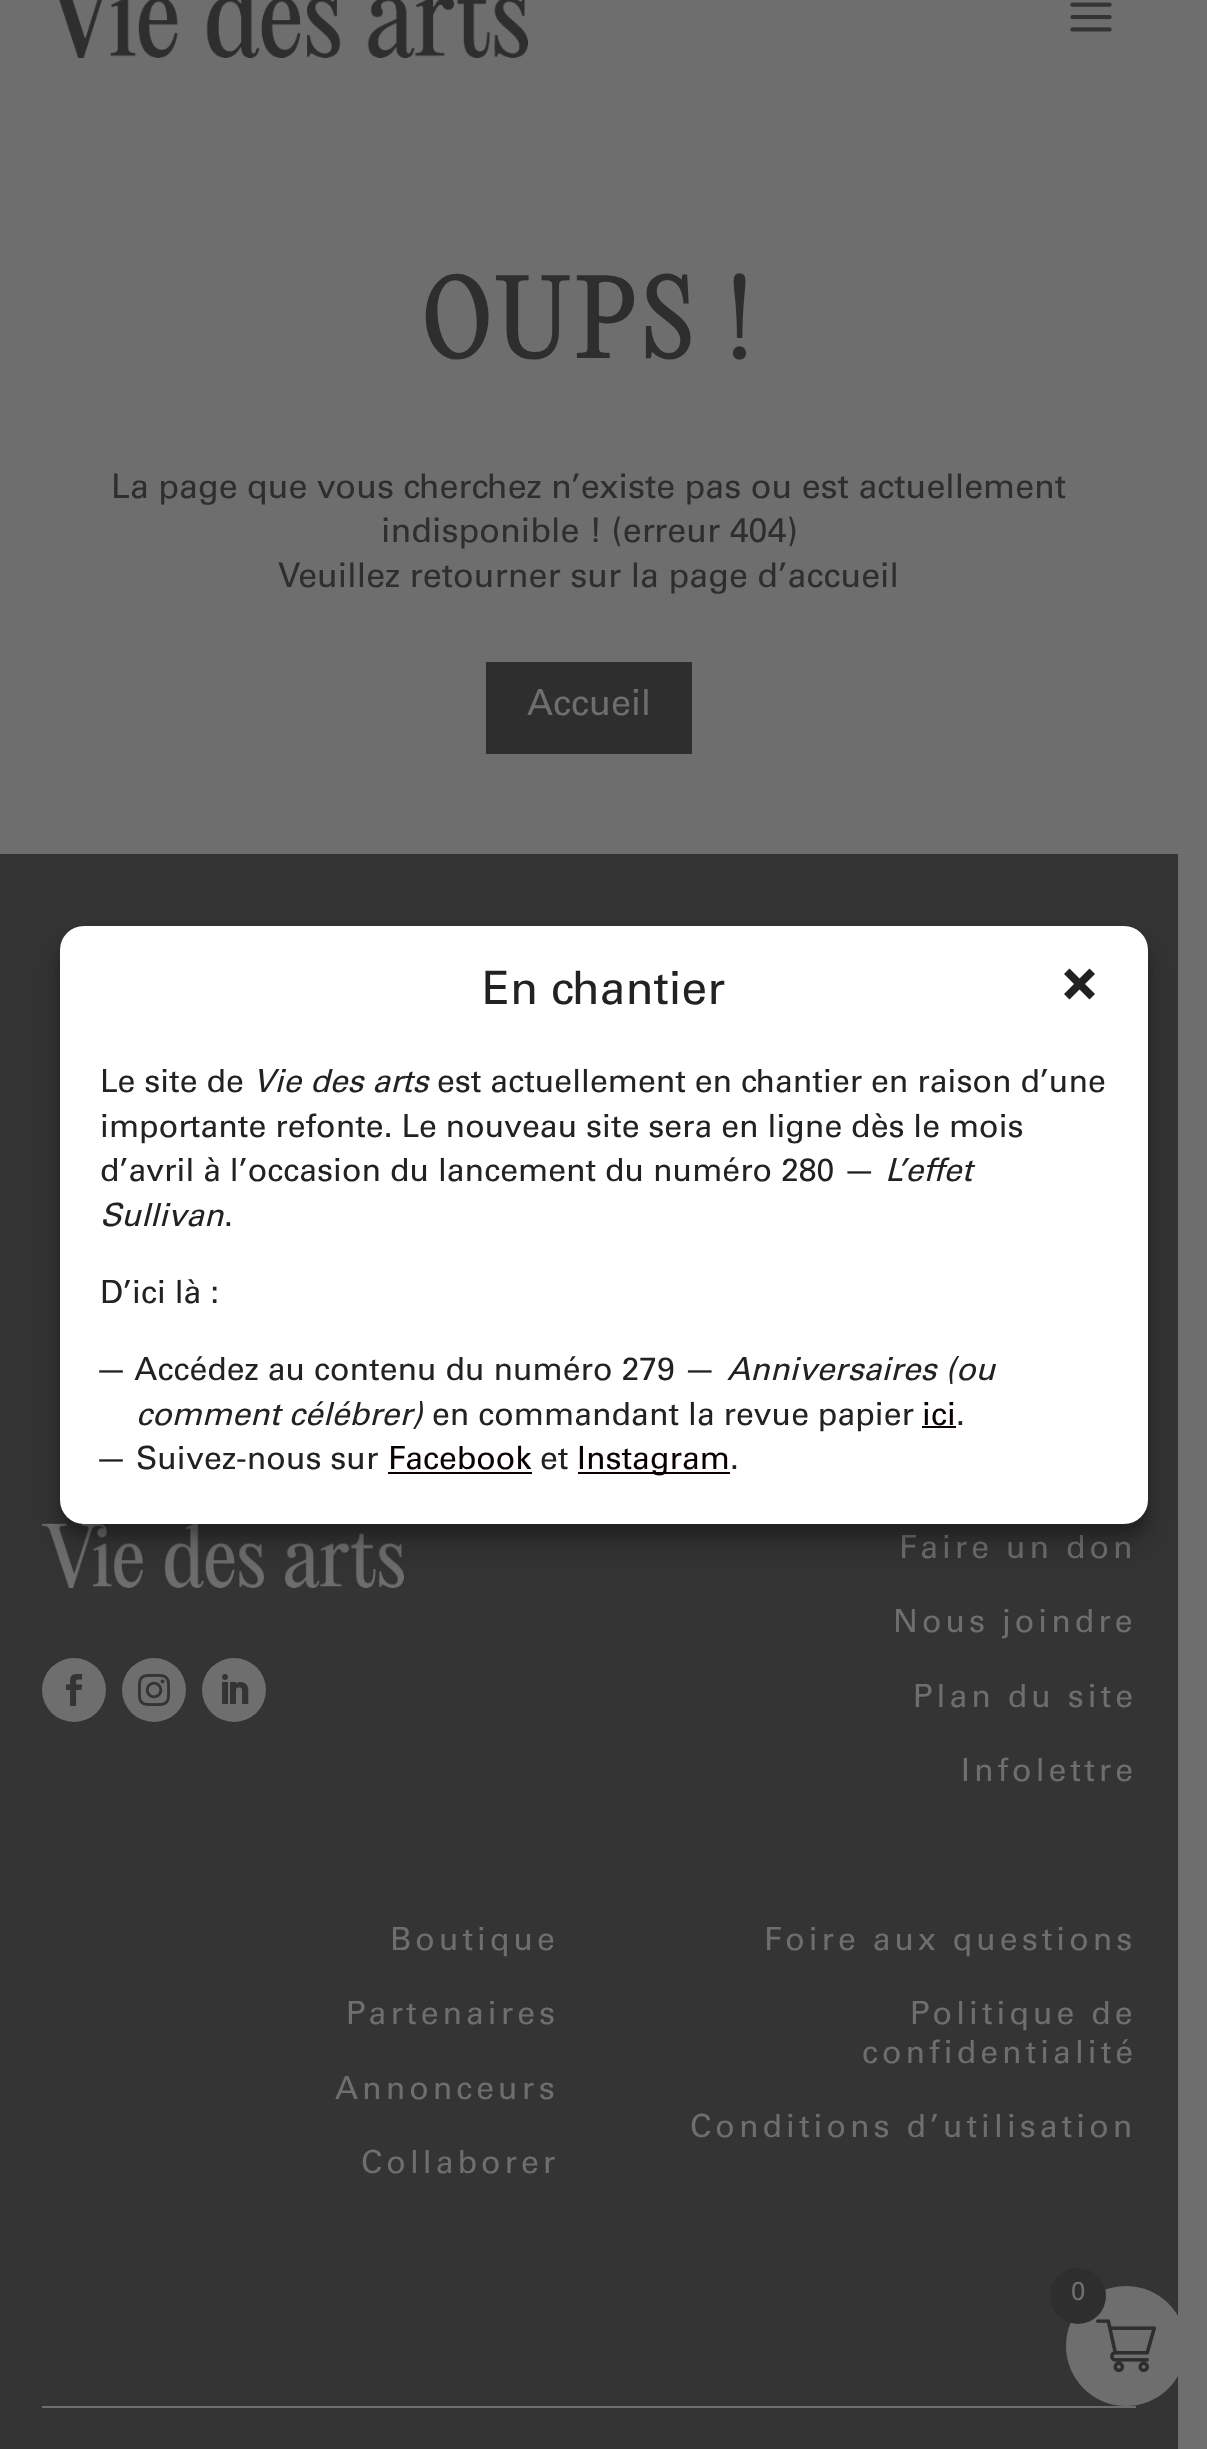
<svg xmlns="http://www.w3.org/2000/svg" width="1207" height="2449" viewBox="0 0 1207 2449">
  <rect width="100%" height="100%" fill="rgb(110,110,110)"/>
  <image x="58" y="0" width="470" height="58" href="pic1.png"/>
  <image x="1070" y="2" width="42" height="30" href="pic2.png"/>
  <text x="422" y="358" font-family="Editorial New" font-size="100" font-weight="bold" letter-spacing="8" fill="rgb(46,46,46)">OUPS !</text>
  <g font-family="Univers" font-size="34" fill="rgb(46,46,46)">
    <text x="111" y="498">La page que vous cherchez n’existe pas ou est actuellement</text>
    <text x="381" y="542">indisponible ! (erreur 404)</text>
    <text x="278" y="587">Veuillez retourner sur la page d’accueil</text>
  </g>
  <rect x="486" y="662" width="206" height="92" fill="rgb(46,46,46)"/>
  <text x="527" y="715" font-family="Univers" font-size="36" fill="rgb(110,110,110)">Accueil</text>
  <rect x="0" y="854" width="1178" height="1595" fill="rgb(52,52,53)"/>
  <image x="42" y="1523" width="362" height="65" href="pic3.png"/>
  <circle cx="74" cy="1690" r="32" fill="rgb(110,110,110)"/>
  <image x="66" y="1674" width="17" height="32" href="pic4.png"/>
  <circle cx="154" cy="1690" r="32" fill="rgb(110,110,110)"/>
  <image x="138" y="1674" width="32" height="32" href="pic5.png"/>
  <circle cx="234" cy="1690" r="32" fill="rgb(110,110,110)"/>
  <image x="222" y="1674" width="27" height="30" href="pic6.png"/>
  <g font-family="Univers" font-size="32" letter-spacing="4" fill="rgb(110,110,110)">
    <text x="899" y="1558">Faire un don</text>
    <text x="893" y="1632">Nous joindre</text>
    <text x="913" y="1707">Plan du site</text>
    <text x="961" y="1781">Infolettre</text>
    <text x="390" y="1950">Boutique</text>
    <text x="346" y="2024">Partenaires</text>
    <text x="335" y="2099">Annonceurs</text>
    <text x="361" y="2173">Collaborer</text>
    <text x="764" y="1950">Foire aux questions</text>
    <text x="910" y="2024">Politique de</text>
    <text x="862" y="2063">confidentialité</text>
    <text x="690" y="2137">Conditions d’utilisation</text>
  </g>
  <rect x="42" y="2406" width="1094" height="2" fill="rgb(110,110,110)"/>
  <rect x="60" y="938" width="1088" height="598" rx="24" fill="rgba(0,0,0,0.23)" filter="blur(6px)"/>
  <rect x="60" y="946" width="1088" height="598" rx="24" fill="rgba(0,0,0,0.19)" filter="blur(20px)"/>
  <rect x="60" y="926" width="1088" height="598" rx="24" fill="rgb(255,255,255)"/>
  <text x="482" y="1004" font-family="Univers" font-size="46" fill="rgb(34,34,34)">En chantier</text>
  <path d="M1069.5 968.5L1095 994L1089.5 999.5L1064 974Z" fill="rgb(34,34,34)"/>
  <path d="M1064 994L1089.5 968.5L1095 974L1069.5 999.5Z" fill="rgb(34,34,34)"/>
  <text x="100" y="1092" font-family="Univers" font-size="32" fill="rgb(34,34,34)">Le site de</text>
  <text x="253" y="1092" font-family="Univers" font-size="32" font-style="italic" fill="rgb(34,34,34)">Vie des arts</text>
  <g font-family="Univers" font-size="32" fill="rgb(34,34,34)">
    <text x="437" y="1092">est actuellement en chantier en raison d’une</text>
    <text>
      <tspan x="100" y="1137">importante refonte. Le nouveau site sera en ligne dès le mois</tspan>
      <tspan x="100" y="1181">d’avril à l’occasion du lancement du numéro 280 —</tspan>
    </text>
  </g>
  <g font-family="Univers" font-size="32" font-style="italic" fill="rgb(34,34,34)">
    <text x="885" y="1181">L’effet</text>
    <text x="100" y="1226">Sullivan</text>
  </g>
  <g font-family="Univers" font-size="32" fill="rgb(34,34,34)">
    <text x="224" y="1226">.</text>
    <text x="100" y="1303">D’ici là :</text>
    <text x="95" y="1380">— Accédez au contenu du numéro 279 —</text>
  </g>
  <g font-family="Univers" font-size="32" font-style="italic" fill="rgb(34,34,34)">
    <text x="727" y="1380">Anniversaires (ou</text>
    <text x="136" y="1425">comment célébrer)</text>
  </g>
  <text x="432" y="1425" font-family="Univers" font-size="32" fill="rgb(34,34,34)">en commandant la revue papier</text>
  <text x="922" y="1425" font-family="Univers" font-size="32" fill="rgb(10,0,2)">ici</text>
  <rect x="922" y="1426" width="34" height="2" fill="rgb(10,0,2)"/>
  <g font-family="Univers" font-size="32" fill="rgb(34,34,34)">
    <text x="956" y="1425">.</text>
    <text x="95" y="1469">— Suivez-nous sur</text>
  </g>
  <text x="388" y="1469" font-family="Univers" font-size="32" fill="rgb(10,0,2)">Facebook</text>
  <rect x="388" y="1472" width="144" height="2" fill="rgb(10,0,2)"/>
  <text x="540" y="1469" font-family="Univers" font-size="32" fill="rgb(34,34,34)">et</text>
  <rect x="578" y="1472" width="152" height="2" fill="rgb(10,0,2)"/>
  <text x="577" y="1469" font-family="Univers" font-size="32" fill="rgb(10,0,2)">Instagram</text>
  <text x="730" y="1469" font-family="Univers" font-size="32" fill="rgb(34,34,34)">.</text>
  <circle cx="1126" cy="2346" r="60" fill="rgb(110,110,110)"/>
  <image x="1096" y="2319" width="60" height="54" href="pic7.png"/>
  <circle cx="1078" cy="2296" r="28" fill="rgb(46,46,46)"/>
  <text x="1071" y="2300" font-family="Univers" font-size="26" fill="rgb(110,110,110)">0</text>
</svg>
